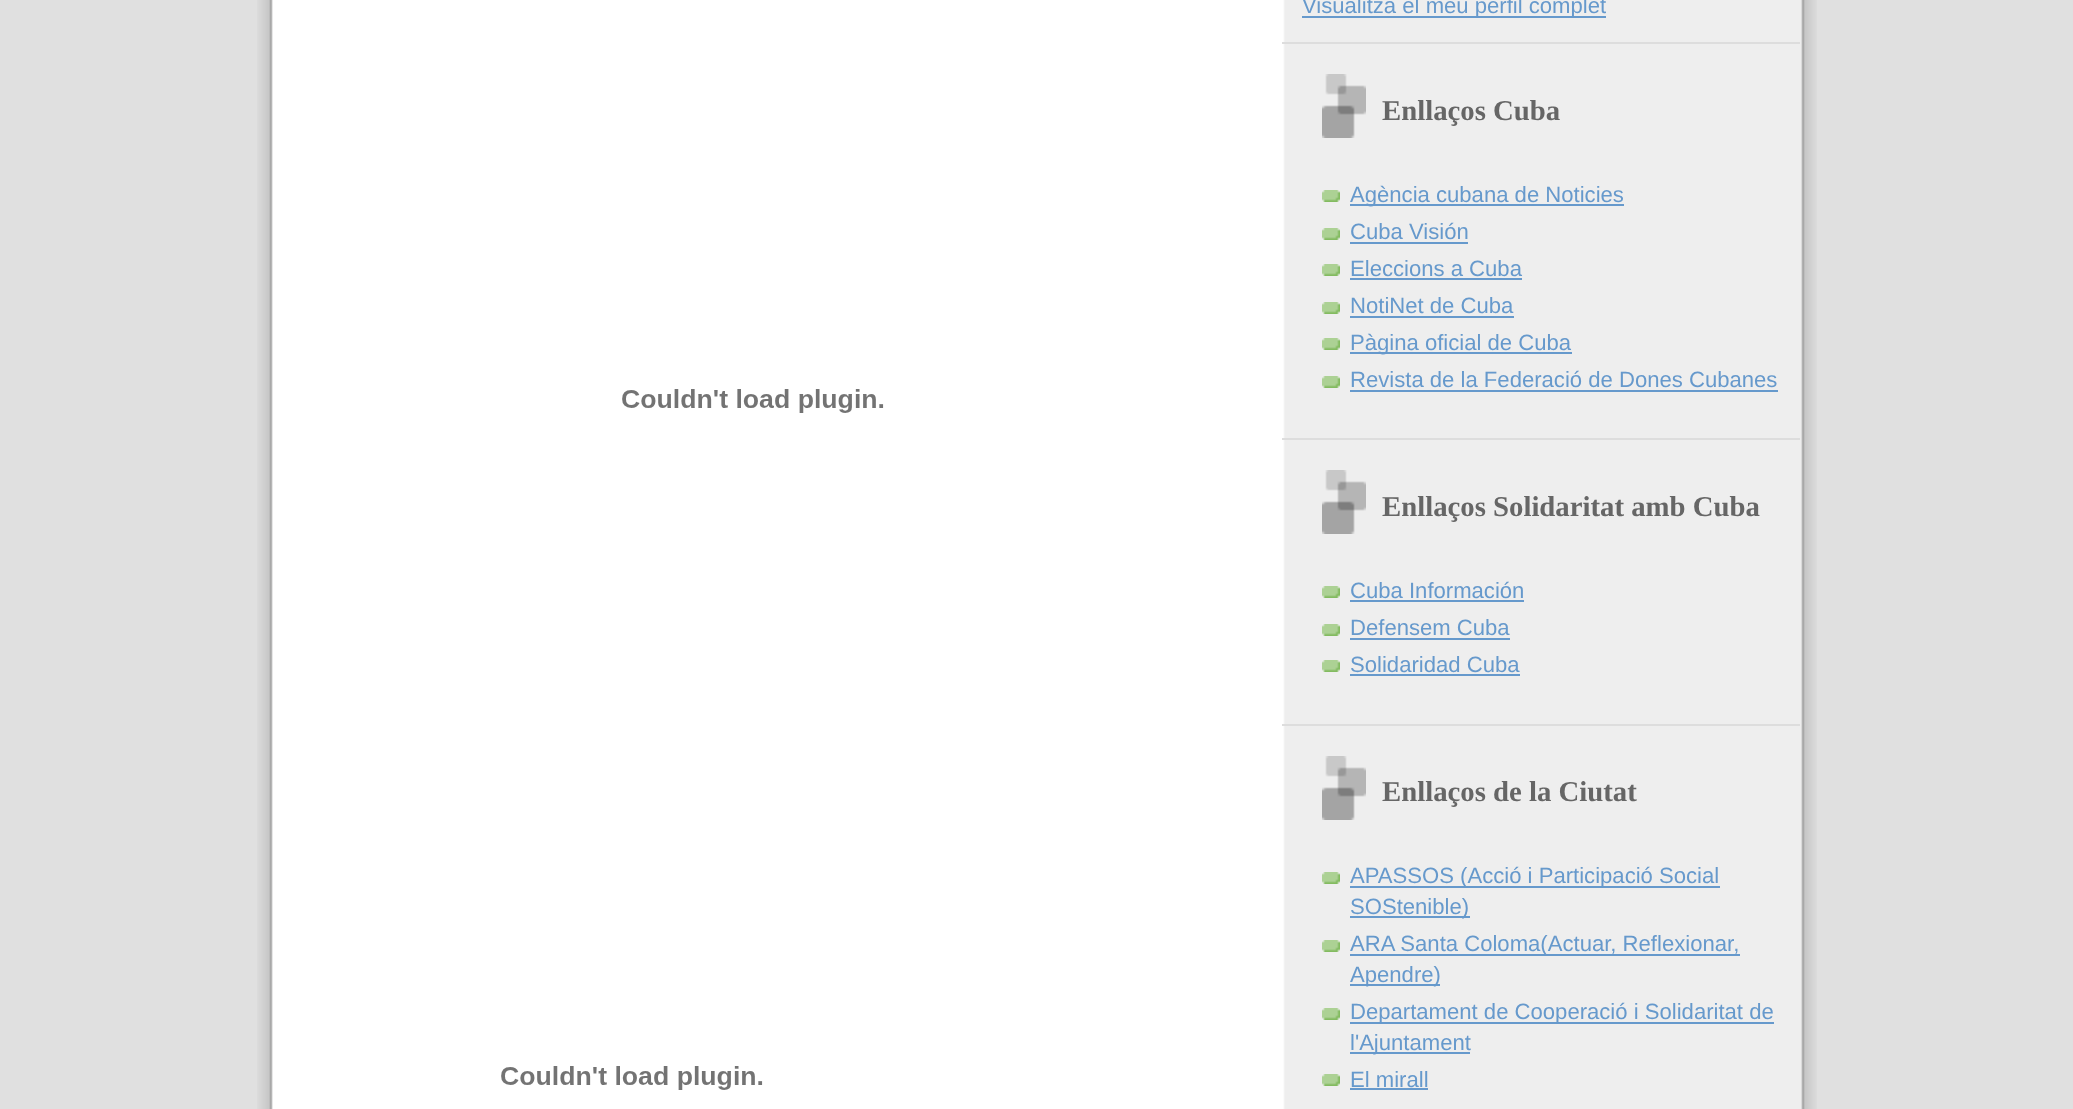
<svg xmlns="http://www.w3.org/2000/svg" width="2073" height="1109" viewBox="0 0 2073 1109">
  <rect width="100%" height="100%" fill="rgb(224,224,224)"/>
  <image x="257" y="0" width="1560" height="1109" href="pic1.png"/>
  <image x="622" y="389" width="262" height="24" href="pic2.png"/>
  <image x="501" y="1066" width="262" height="24" href="pic2.png"/>
  <rect x="1282" y="42" width="518" height="2" fill="rgb(221,221,221)"/>
  <rect x="1302" y="16" width="304" height="2" fill="rgb(102,153,204)"/>
  <text x="1302" y="13" font-family="Liberation Sans" font-size="22.1" fill="rgb(102,153,204)">Visualitza el meu perfil complet</text>
  <rect x="1282" y="438" width="518" height="2" fill="rgb(221,221,221)"/>
  <image x="1322" y="74" width="44" height="64" href="pic3.png"/>
  <text x="1382" y="120" font-family="Liberation Serif" font-size="28.75" font-weight="bold" fill="rgb(102,102,102)">Enllaços Cuba</text>
  <image x="1322" y="190" width="18" height="12" href="pic4.png"/>
  <rect x="1350" y="204" width="274" height="2" fill="rgb(102,153,204)"/>
  <text x="1350" y="202" font-family="Liberation Sans" font-size="22.1" fill="rgb(102,153,204)">Agència cubana de Noticies</text>
  <image x="1322" y="228" width="18" height="12" href="pic4.png"/>
  <text x="1350" y="239" font-family="Liberation Sans" font-size="22.1" fill="rgb(102,153,204)">Cuba Visión</text>
  <rect x="1350" y="242" width="118" height="2" fill="rgb(102,153,204)"/>
  <image x="1322" y="264" width="18" height="12" href="pic4.png"/>
  <text x="1350" y="276" font-family="Liberation Sans" font-size="22.1" fill="rgb(102,153,204)">Eleccions a Cuba</text>
  <rect x="1350" y="278" width="172" height="2" fill="rgb(102,153,204)"/>
  <image x="1322" y="302" width="18" height="12" href="pic4.png"/>
  <text x="1350" y="313" font-family="Liberation Sans" font-size="22.1" fill="rgb(102,153,204)">NotiNet de Cuba</text>
  <rect x="1350" y="316" width="164" height="2" fill="rgb(102,153,204)"/>
  <image x="1322" y="338" width="18" height="12" href="pic4.png"/>
  <rect x="1350" y="352" width="222" height="2" fill="rgb(102,153,204)"/>
  <text x="1350" y="350" font-family="Liberation Sans" font-size="22.1" fill="rgb(102,153,204)">Pàgina oficial de Cuba</text>
  <image x="1322" y="376" width="18" height="12" href="pic4.png"/>
  <text x="1350" y="387" font-family="Liberation Sans" font-size="22.1" fill="rgb(102,153,204)">Revista de la Federació de Dones Cubanes</text>
  <rect x="1350" y="390" width="428" height="2" fill="rgb(102,153,204)"/>
  <rect x="1282" y="724" width="518" height="2" fill="rgb(221,221,221)"/>
  <image x="1322" y="470" width="44" height="64" href="pic3.png"/>
  <text x="1382" y="516" font-family="Liberation Serif" font-size="28.75" font-weight="bold" fill="rgb(102,102,102)">Enllaços Solidaritat amb Cuba</text>
  <image x="1322" y="586" width="18" height="12" href="pic4.png"/>
  <text x="1350" y="598" font-family="Liberation Sans" font-size="22.1" fill="rgb(102,153,204)">Cuba Información</text>
  <rect x="1350" y="600" width="174" height="2" fill="rgb(102,153,204)"/>
  <image x="1322" y="624" width="18" height="12" href="pic4.png"/>
  <text x="1350" y="635" font-family="Liberation Sans" font-size="22.1" fill="rgb(102,153,204)">Defensem Cuba</text>
  <rect x="1350" y="638" width="160" height="2" fill="rgb(102,153,204)"/>
  <image x="1322" y="660" width="18" height="12" href="pic4.png"/>
  <text x="1350" y="672" font-family="Liberation Sans" font-size="22.1" fill="rgb(102,153,204)">Solidaridad Cuba</text>
  <rect x="1350" y="674" width="170" height="2" fill="rgb(102,153,204)"/>
  <image x="1322" y="756" width="44" height="64" href="pic3.png"/>
  <text x="1382" y="801" font-family="Liberation Serif" font-size="28.75" font-weight="bold" fill="rgb(102,102,102)">Enllaços de la Ciutat</text>
  <image x="1322" y="872" width="18" height="12" href="pic4.png"/>
  <rect x="1350" y="886" width="370" height="2" fill="rgb(102,153,204)"/>
  <text x="1350" y="883" font-family="Liberation Sans" font-size="22.1" fill="rgb(102,153,204)">APASSOS (Acció i Participació Social</text>
  <rect x="1350" y="916" width="120" height="2" fill="rgb(102,153,204)"/>
  <text x="1350" y="914" font-family="Liberation Sans" font-size="22.1" fill="rgb(102,153,204)">SOStenible)</text>
  <image x="1322" y="940" width="18" height="12" href="pic4.png"/>
  <rect x="1350" y="954" width="390" height="2" fill="rgb(102,153,204)"/>
  <text x="1350" y="951" font-family="Liberation Sans" font-size="22.1" fill="rgb(102,153,204)">ARA Santa Coloma(Actuar, Reflexionar,</text>
  <rect x="1350" y="984" width="90" height="2" fill="rgb(102,153,204)"/>
  <text x="1350" y="982" font-family="Liberation Sans" font-size="22.1" fill="rgb(102,153,204)">Apendre)</text>
  <image x="1322" y="1008" width="18" height="12" href="pic4.png"/>
  <rect x="1350" y="1022" width="424" height="2" fill="rgb(102,153,204)"/>
  <text x="1350" y="1019" font-family="Liberation Sans" font-size="22.1" fill="rgb(102,153,204)">Departament de Cooperació i Solidaritat de</text>
  <rect x="1350" y="1052" width="120" height="2" fill="rgb(102,153,204)"/>
  <text x="1350" y="1050" font-family="Liberation Sans" font-size="22.1" fill="rgb(102,153,204)">l'Ajuntament</text>
  <image x="1322" y="1074" width="18" height="12" href="pic4.png"/>
  <text x="1350" y="1087" font-family="Liberation Sans" font-size="22.1" fill="rgb(102,153,204)">El mirall</text>
  <rect x="1350" y="1088" width="78" height="2" fill="rgb(102,153,204)"/>
</svg>
